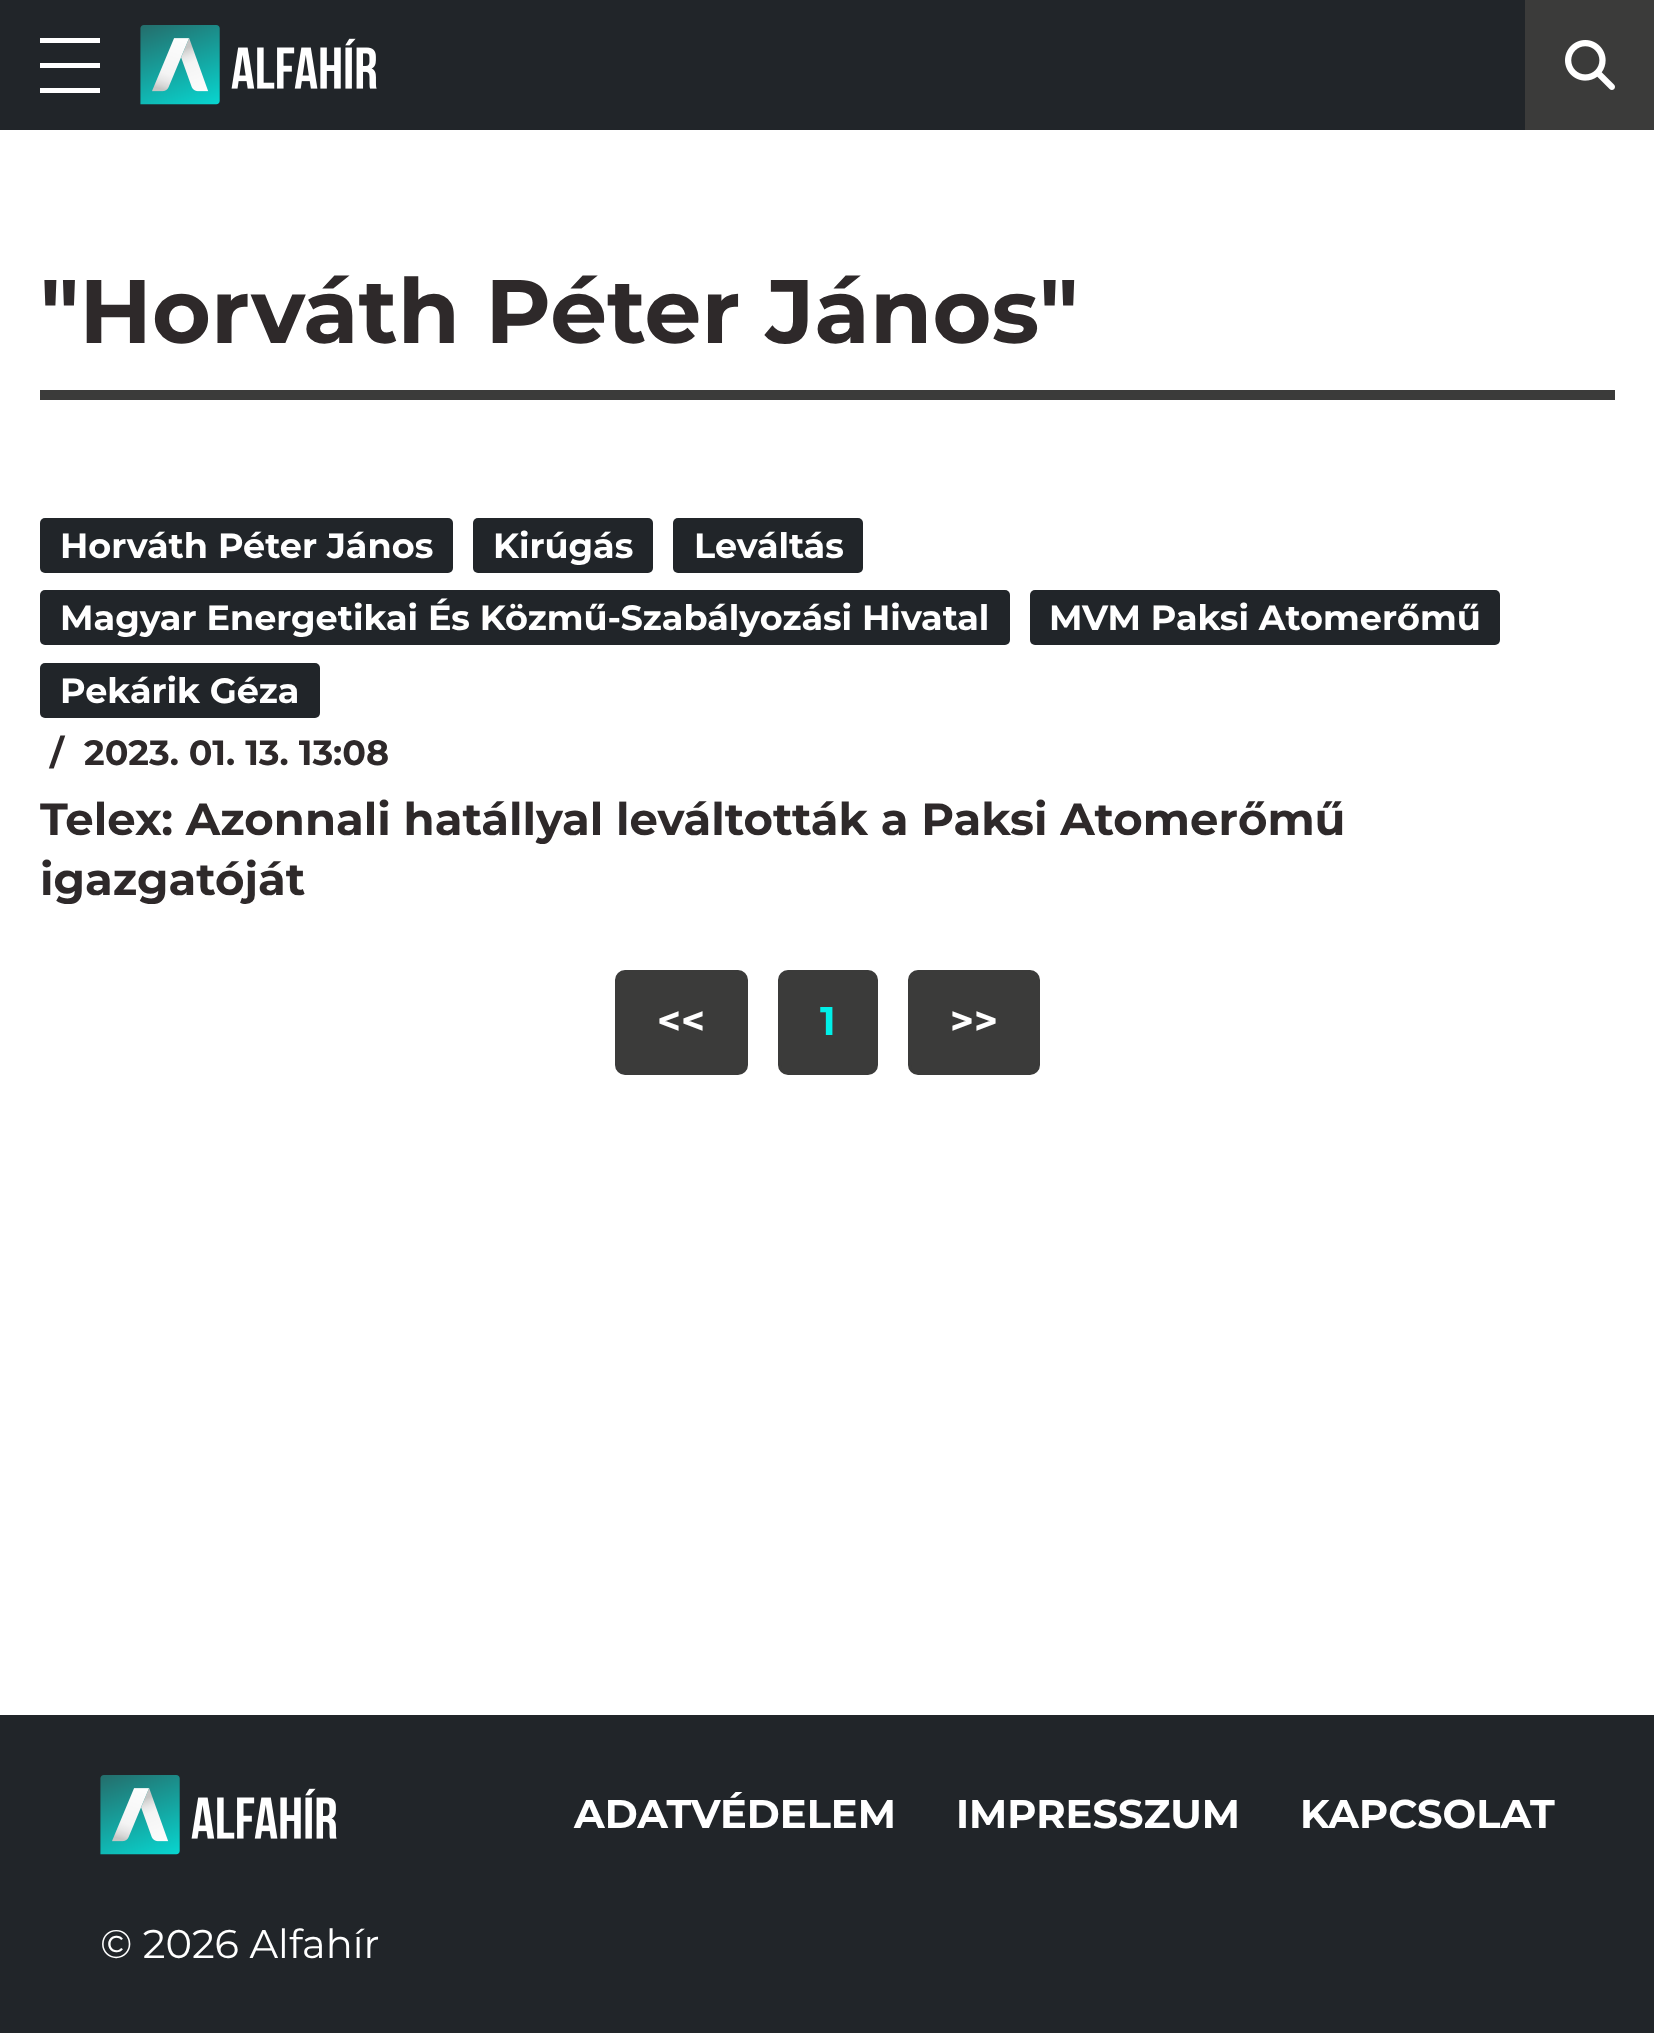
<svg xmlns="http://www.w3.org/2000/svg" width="1654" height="2033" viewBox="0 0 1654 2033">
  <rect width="100%" height="100%" fill="rgb(255,255,255)"/>
  <rect x="0" y="0" width="1525" height="130" fill="rgb(33,37,41)"/>
  <rect x="40" y="38" width="60" height="5" fill="rgb(255,255,255)"/>
  <rect x="40" y="63" width="60" height="5" fill="rgb(255,255,255)"/>
  <rect x="40" y="88" width="60" height="5" fill="rgb(255,255,255)"/>
  <image x="140" y="25" width="237" height="80" href="pic1.png"/>
  <rect x="1525" y="0" width="129" height="130" fill="rgb(59,59,58)"/>
  <image x="1565" y="40" width="50" height="50" href="pic2.png"/>
  <rect x="40" y="390" width="1575" height="10" fill="rgb(59,59,58)"/>
  <text x="40" y="343" font-family="Montserrat" font-size="90" font-weight="bold" fill="rgb(46,41,42)">"Horváth Péter János"</text>
  <rect x="40" y="518" width="413" height="55" rx="5" fill="rgb(33,37,41)"/>
  <text x="60" y="558" font-family="Montserrat" font-size="35" font-weight="bold" fill="rgb(255,255,255)">Horváth Péter János</text>
  <rect x="473" y="518" width="180" height="55" rx="5" fill="rgb(33,37,41)"/>
  <text x="493" y="558" font-family="Montserrat" font-size="35" font-weight="bold" fill="rgb(255,255,255)">Kirúgás</text>
  <rect x="673" y="518" width="190" height="55" rx="5" fill="rgb(33,37,41)"/>
  <text x="694" y="558" font-family="Montserrat" font-size="35" font-weight="bold" fill="rgb(255,255,255)">Leváltás</text>
  <rect x="40" y="590" width="970" height="55" rx="5" fill="rgb(33,37,41)"/>
  <text x="60" y="630" font-family="Montserrat" font-size="35" font-weight="bold" fill="rgb(255,255,255)">Magyar Energetikai És Közmű-Szabályozási Hivatal</text>
  <rect x="1030" y="590" width="470" height="55" rx="5" fill="rgb(33,37,41)"/>
  <text x="1049" y="630" font-family="Montserrat" font-size="35" font-weight="bold" fill="rgb(255,255,255)">MVM Paksi Atomerőmű</text>
  <rect x="40" y="663" width="280" height="55" rx="5" fill="rgb(33,37,41)"/>
  <text x="60" y="703" font-family="Montserrat" font-size="35" font-weight="bold" fill="rgb(255,255,255)">Pekárik Géza</text>
  <g font-family="Montserrat" font-size="35" font-weight="bold" fill="rgb(46,41,42)">
    <text x="50" y="765">/</text>
    <text x="84" y="765">2023. 01. 13. 13:08</text>
  </g>
  <g font-family="Montserrat" font-size="45" font-weight="bold" fill="rgb(46,41,42)">
    <text>
      <tspan x="40" y="835">Telex: Azonnali hatállyal leváltották a Paksi Atomerőmű</tspan>
      <tspan x="40" y="895">igazgatóját</tspan>
    </text>
  </g>
  <rect x="616.5" y="971.5" width="130" height="102" rx="8.5" fill="rgb(59,59,58)" stroke="rgb(59,59,58)" stroke-width="3"/>
  <text x="657" y="1035" font-family="Montserrat" font-size="40" font-weight="bold" fill="rgb(255,255,255)">&lt;&lt;</text>
  <rect x="779.5" y="971.5" width="97" height="102" rx="8.5" fill="rgb(59,59,58)" stroke="rgb(59,59,58)" stroke-width="3"/>
  <text x="820" y="1035" font-family="Montserrat" font-size="40" font-weight="bold" fill="rgb(0,240,232)">1</text>
  <rect x="909.5" y="971.5" width="129" height="102" rx="8.5" fill="rgb(59,59,58)" stroke="rgb(59,59,58)" stroke-width="3"/>
  <text x="950" y="1035" font-family="Montserrat" font-size="40" font-weight="bold" fill="rgb(255,255,255)">&gt;&gt;</text>
  <rect x="0" y="1715" width="1654" height="318" fill="rgb(33,37,41)"/>
  <image x="100" y="1775" width="237" height="80" href="pic1.png"/>
  <g font-family="Montserrat" font-size="40" font-weight="bold" fill="rgb(255,255,255)">
    <text x="574" y="1828">ADATVÉDELEM</text>
    <text x="956" y="1828">IMPRESSZUM</text>
    <text x="1300" y="1828">KAPCSOLAT</text>
  </g>
  <text x="100" y="1958" font-family="Montserrat" font-size="40" fill="rgb(255,255,255)">© 2026 Alfahír</text>
</svg>
